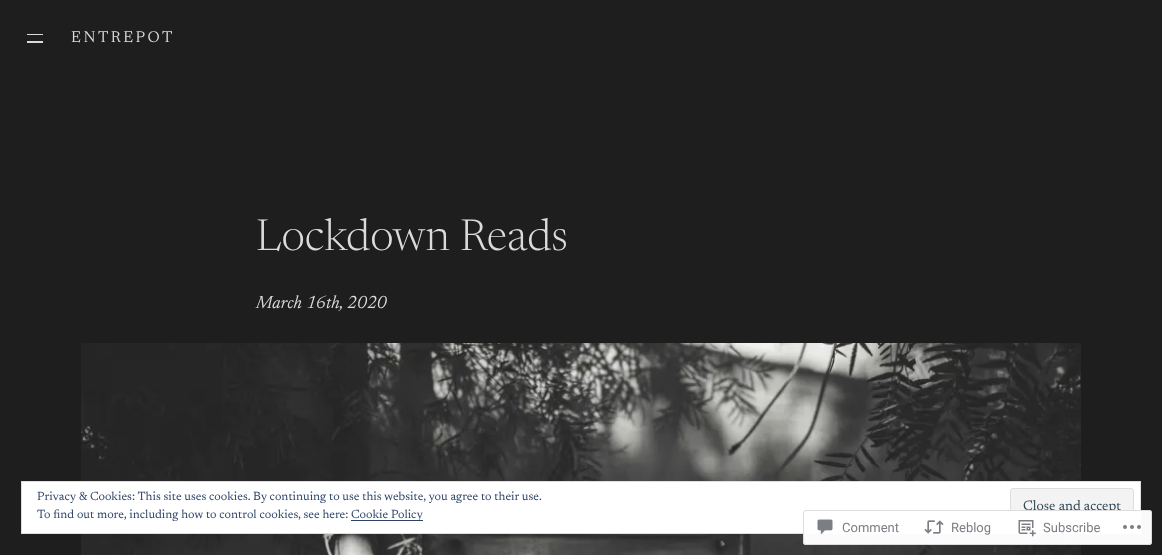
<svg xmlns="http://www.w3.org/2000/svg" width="1162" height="555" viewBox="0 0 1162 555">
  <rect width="100%" height="100%" fill="rgb(30,30,30)"/>
  <rect x="27" y="34" width="16" height="1" fill="rgb(219,219,219)"/>
  <rect x="27" y="41" width="16" height="2" fill="rgb(219,219,219)"/>
  <text x="71" y="42" font-family="Newsreader" font-size="16" letter-spacing="2.5" fill="rgb(219,219,219)">ENTREPOT</text>
  <text x="256" y="250" font-family="Newsreader" font-size="44" font-weight="300" fill="rgb(219,219,219)">Lockdown Reads</text>
  <text x="256" y="308" font-family="Newsreader" font-size="18" font-style="italic" fill="rgb(219,219,219)">March 16th, 2020</text>
  <image x="81" y="343" width="1000" height="212" href="pic1.png"/>
  <rect x="21.5" y="481.5" width="1119" height="52" fill="rgb(255,255,255)" stroke="rgb(222,222,222)"/>
  <text x="37" y="500" font-family="'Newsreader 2'" font-size="12" fill="rgb(46,68,103)">Privacy &amp; Cookies: This site uses cookies. By continuing to use this website, you agree to their use.</text>
  <rect x="1010.5" y="488.5" width="123" height="38" rx="2.5" fill="rgb(243,243,243)" stroke="rgb(222,222,222)"/>
  <text x="1023" y="510" font-family="'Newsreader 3'" font-size="14" fill="rgb(46,68,83)">Close and accept</text>
  <text x="37" y="518" font-family="'Newsreader 2'" font-size="12" fill="rgb(46,68,103)">To find out more, including how to control cookies, see here:</text>
  <rect x="351" y="520" width="72" height="1" fill="rgb(46,68,103)"/>
  <text x="351" y="518" font-family="'Newsreader 2'" font-size="12" fill="rgb(46,68,103)">Cookie Policy</text>
  <rect x="803" y="510" width="349" height="35" rx="3" fill="rgba(255,255,255,0.98)"/>
  <rect x="803.5" y="510.5" width="348" height="34" rx="2.5" fill="none" stroke="rgba(220,220,222,0.98)"/>
  <image x="817" y="519" width="16" height="16" href="pic2.png"/>
  <text x="842" y="532" font-family="Roboto" font-size="13" fill="rgb(123,127,133)">Comment</text>
  <image x="924" y="520" width="20" height="14" href="pic3.png"/>
  <text x="951" y="532" font-family="Roboto" font-size="13" fill="rgb(123,127,133)">Reblog</text>
  <image x="1018" y="520" width="18" height="17" href="pic4.png"/>
  <text x="1043" y="532" font-family="Roboto" font-size="13" fill="rgb(123,127,133)">Subscribe</text>
  <image x="1123" y="525" width="18" height="4" href="pic5.png"/>
</svg>
